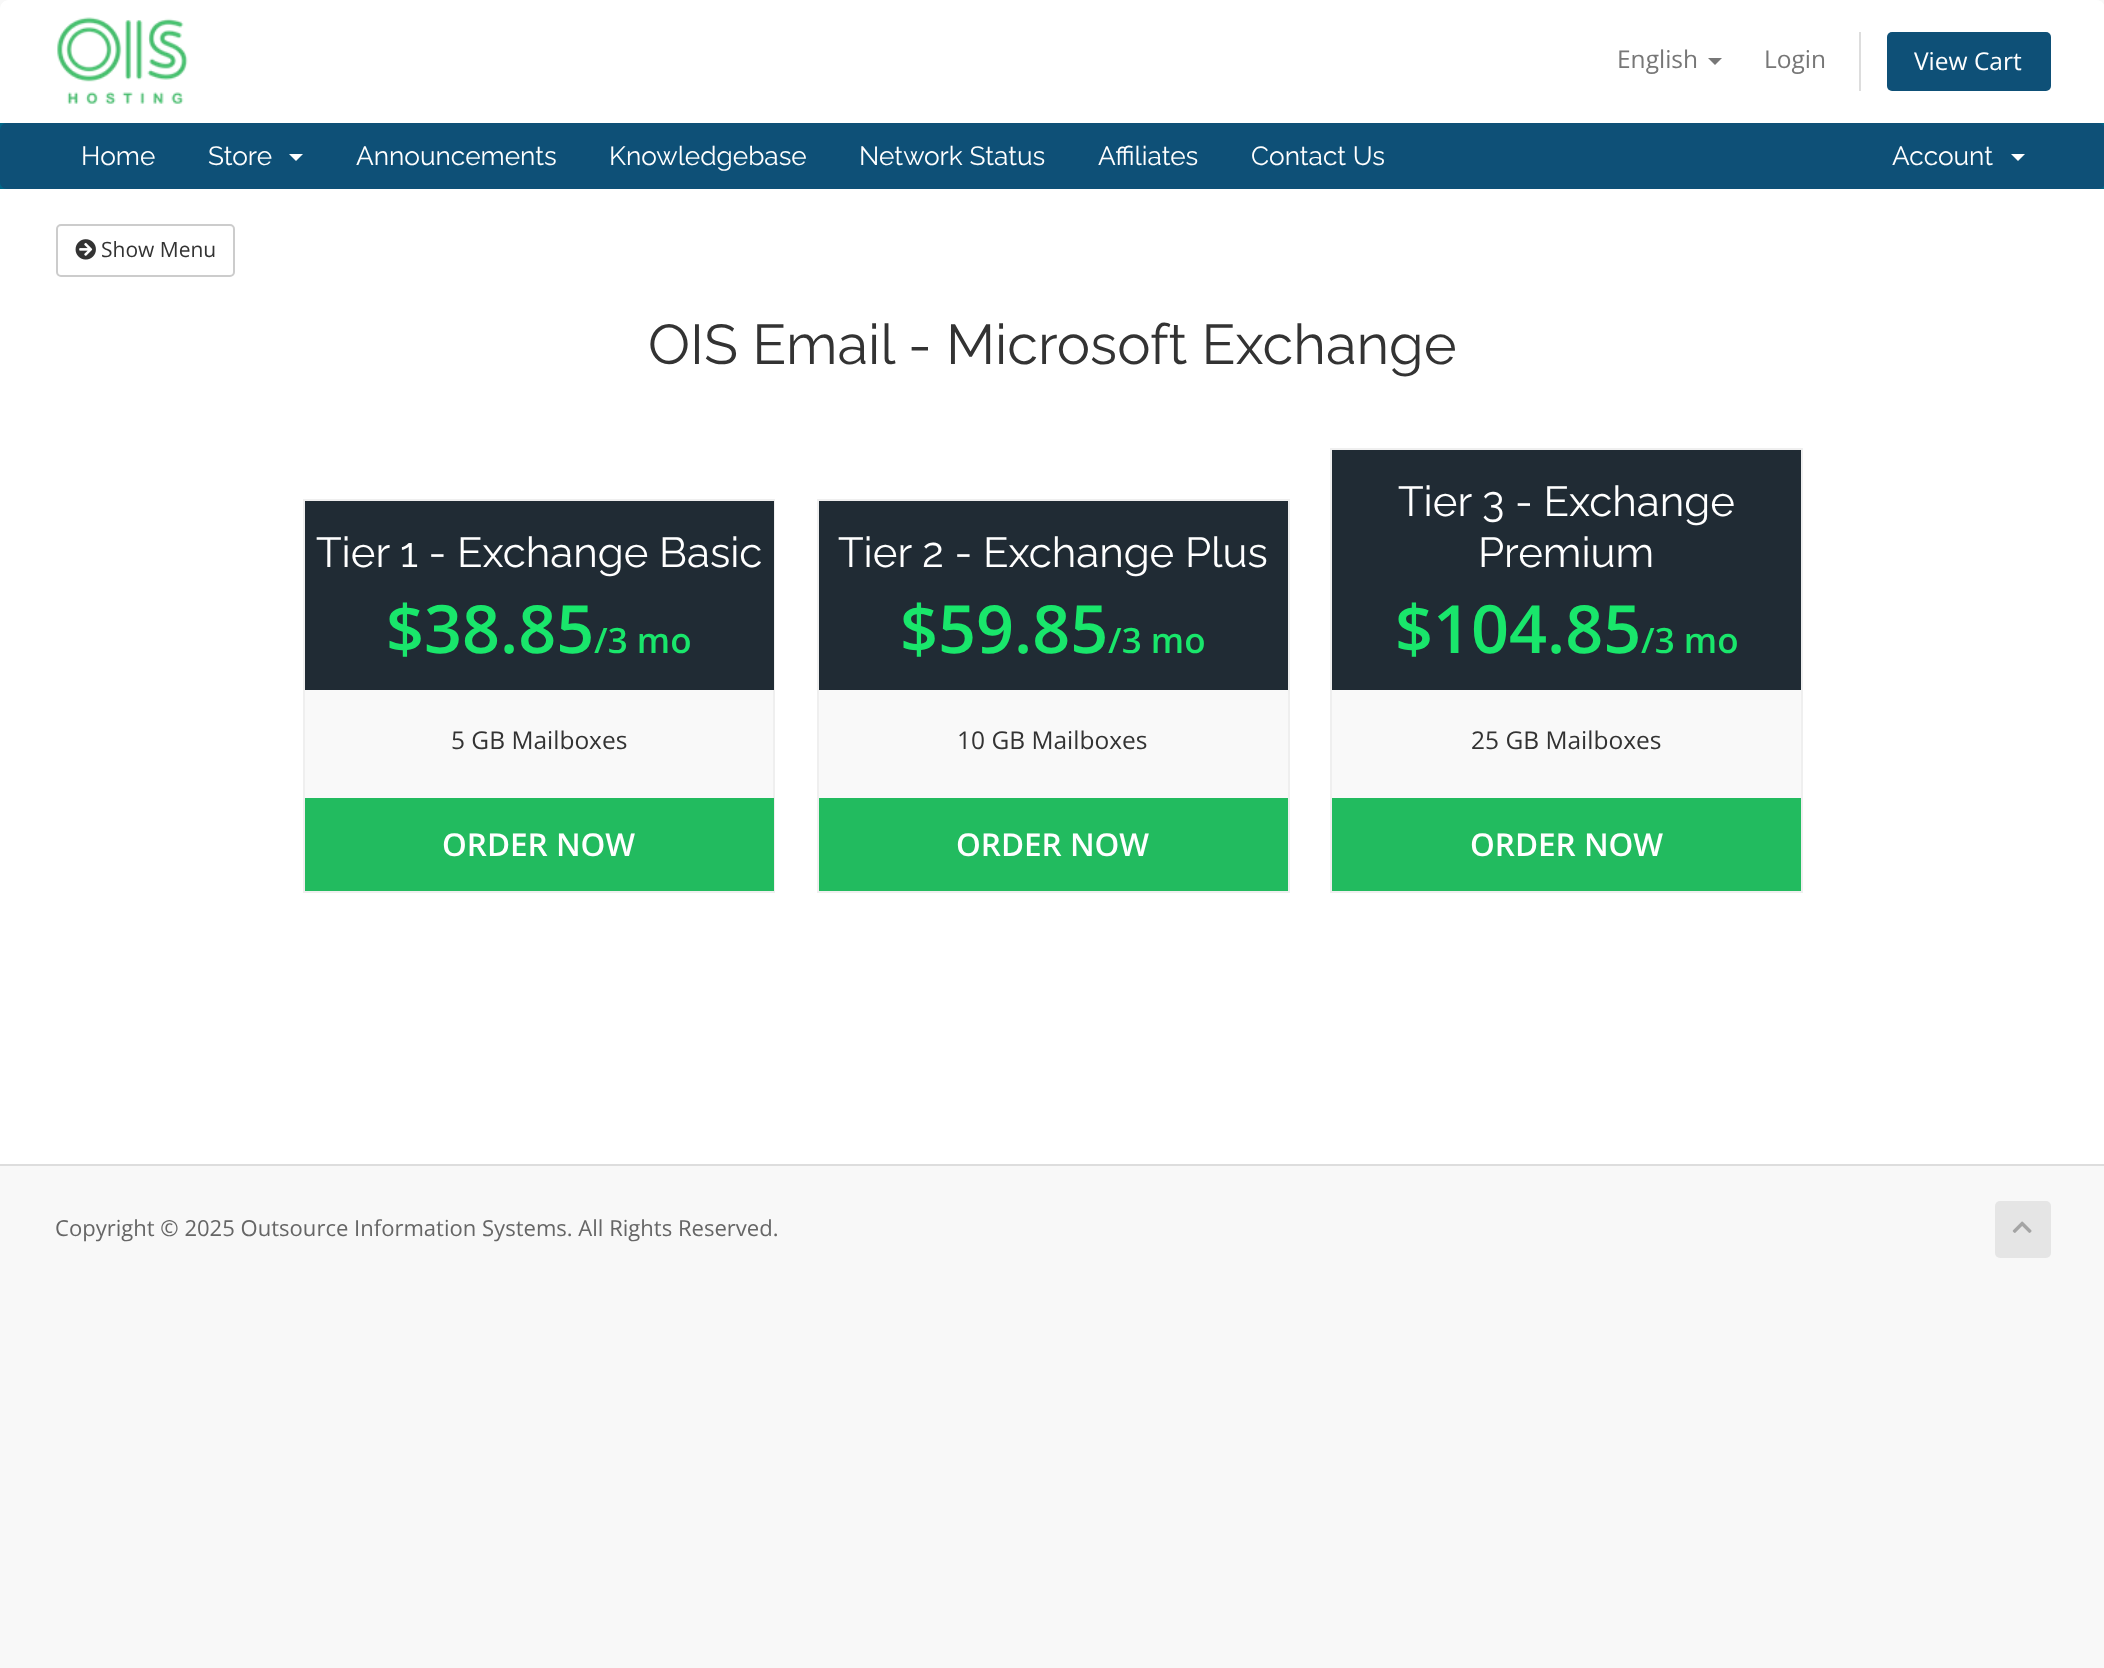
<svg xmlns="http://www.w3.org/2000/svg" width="2104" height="1668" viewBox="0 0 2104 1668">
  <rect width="100%" height="100%" fill="rgb(248,248,248)"/>
  <path d="M9 0H2096C2101 0 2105 4 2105 9V123H0V9C0 4 4 0 9 0Z" fill="rgb(255,255,255)"/>
  <image x="57" y="17" width="131" height="87" href="pic1.png"/>
  <text x="1617" y="68" font-family="Open Sans" font-size="24.5" fill="rgb(119,119,119)">English</text>
  <path d="M1708 58H1722L1715 65Z" fill="rgb(119,119,119)"/>
  <text x="1764" y="68" font-family="Open Sans" font-size="24.5" fill="rgb(119,119,119)">Login</text>
  <rect x="1859" y="32" width="2" height="59" fill="rgb(221,221,221)"/>
  <rect x="1887" y="32" width="164" height="59" rx="5" fill="rgb(14,80,119)"/>
  <text x="1914" y="70" font-family="Open Sans" font-size="24.5" fill="rgb(255,255,255)">View Cart</text>
  <rect x="0" y="123" width="2104" height="66" fill="rgb(0,102,135)"/>
  <rect x="0" y="123" width="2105" height="66" rx="7" fill="rgb(14,80,119)"/>
  <g font-family="Raleway" font-size="26.25" fill="rgb(255,255,255)">
    <text x="81" y="165">Home</text>
    <text x="208" y="165">Store</text>
  </g>
  <path d="M289 154H303L296 161Z" fill="rgb(255,255,255)"/>
  <g font-family="Raleway" font-size="26.25" fill="rgb(255,255,255)">
    <text x="356" y="165">Announcements</text>
    <text x="609" y="165">Knowledgebase</text>
    <text x="859" y="165">Network Status</text>
    <text x="1098" y="165">Affiliates</text>
    <text x="1251" y="165">Contact Us</text>
    <text x="1892" y="165">Account</text>
  </g>
  <path d="M2011 154H2025L2018 161Z" fill="rgb(255,255,255)"/>
  <rect x="0" y="189" width="2104" height="975" fill="rgb(255,255,255)"/>
  <rect x="57" y="225" width="177" height="51" rx="4" fill="none" stroke="rgb(204,204,204)" stroke-width="2"/>
  <image x="75" y="239" width="21" height="21" href="pic2.png"/>
  <text x="101" y="257" font-family="Open Sans" font-size="21" fill="rgb(51,51,51)">Show Menu</text>
  <text x="648" y="364" font-family="Raleway" font-size="56" fill="rgb(51,51,51)">OIS Email - Microsoft Exchange</text>
  <rect x="305" y="690" width="468" height="108" fill="rgb(249,249,249)"/>
  <rect x="304" y="500" width="470" height="392" fill="none" stroke="rgb(239,239,239)" stroke-width="2"/>
  <rect x="305" y="501" width="469" height="189" fill="rgb(32,43,52)"/>
  <text x="316" y="567" font-family="Raleway" font-size="42" fill="rgb(255,255,255)">Tier 1 - Exchange Basic</text>
  <text x="386" y="653" font-family="Open Sans" font-size="66.5" font-weight="600" fill="rgb(25,230,107)">$38.85</text>
  <text x="594" y="653" font-family="Open Sans" font-size="35" font-weight="600" fill="rgb(25,230,107)">/3 mo</text>
  <text x="451" y="749" font-family="Open Sans" font-size="24.5" fill="rgb(51,51,51)">5 GB Mailboxes</text>
  <rect x="305" y="798" width="469" height="93" fill="rgb(34,187,95)"/>
  <text x="442" y="856" font-family="Open Sans" font-size="31.5" font-weight="600" fill="rgb(255,255,255)">ORDER NOW</text>
  <rect x="819" y="690" width="469" height="108" fill="rgb(249,249,249)"/>
  <rect x="818" y="500" width="471" height="392" fill="none" stroke="rgb(239,239,239)" stroke-width="2"/>
  <rect x="819" y="501" width="469" height="189" fill="rgb(32,43,52)"/>
  <text x="838" y="567" font-family="Raleway" font-size="42" fill="rgb(255,255,255)">Tier 2 - Exchange Plus</text>
  <text x="900" y="653" font-family="Open Sans" font-size="66.5" font-weight="600" fill="rgb(25,230,107)">$59.85</text>
  <text x="1108" y="653" font-family="Open Sans" font-size="35" font-weight="600" fill="rgb(25,230,107)">/3 mo</text>
  <text x="957" y="749" font-family="Open Sans" font-size="24.5" fill="rgb(51,51,51)">10 GB Mailboxes</text>
  <rect x="819" y="798" width="469" height="93" fill="rgb(34,187,95)"/>
  <text x="956" y="856" font-family="Open Sans" font-size="31.5" font-weight="600" fill="rgb(255,255,255)">ORDER NOW</text>
  <rect x="1332" y="690" width="469" height="108" fill="rgb(249,249,249)"/>
  <rect x="1331" y="449" width="471" height="443" fill="none" stroke="rgb(239,239,239)" stroke-width="2"/>
  <rect x="1332" y="450" width="469" height="240" fill="rgb(32,43,52)"/>
  <g font-family="Raleway" font-size="42" fill="rgb(255,255,255)">
    <text x="1398" y="516">Tier 3 - Exchange</text>
    <text x="1478" y="567">Premium</text>
  </g>
  <text x="1395" y="653" font-family="Open Sans" font-size="66.5" font-weight="600" fill="rgb(25,230,107)">$104.85</text>
  <text x="1641" y="653" font-family="Open Sans" font-size="35" font-weight="600" fill="rgb(25,230,107)">/3 mo</text>
  <text x="1471" y="749" font-family="Open Sans" font-size="24.5" fill="rgb(51,51,51)">25 GB Mailboxes</text>
  <rect x="1332" y="798" width="469" height="93" fill="rgb(34,187,95)"/>
  <text x="1470" y="856" font-family="Open Sans" font-size="31.5" font-weight="600" fill="rgb(255,255,255)">ORDER NOW</text>
  <rect x="0" y="1164" width="2104" height="2" fill="rgb(221,221,221)"/>
  <text x="55" y="1236" font-family="Open Sans" font-size="22.05" fill="rgb(102,102,102)">Copyright © 2025 Outsource Information Systems. All Rights Reserved.</text>
  <rect x="1995" y="1201" width="56" height="57" rx="5" fill="rgb(229,229,229)"/>
  <image x="2012" y="1221" width="20" height="12" href="pic3.png"/>
</svg>
